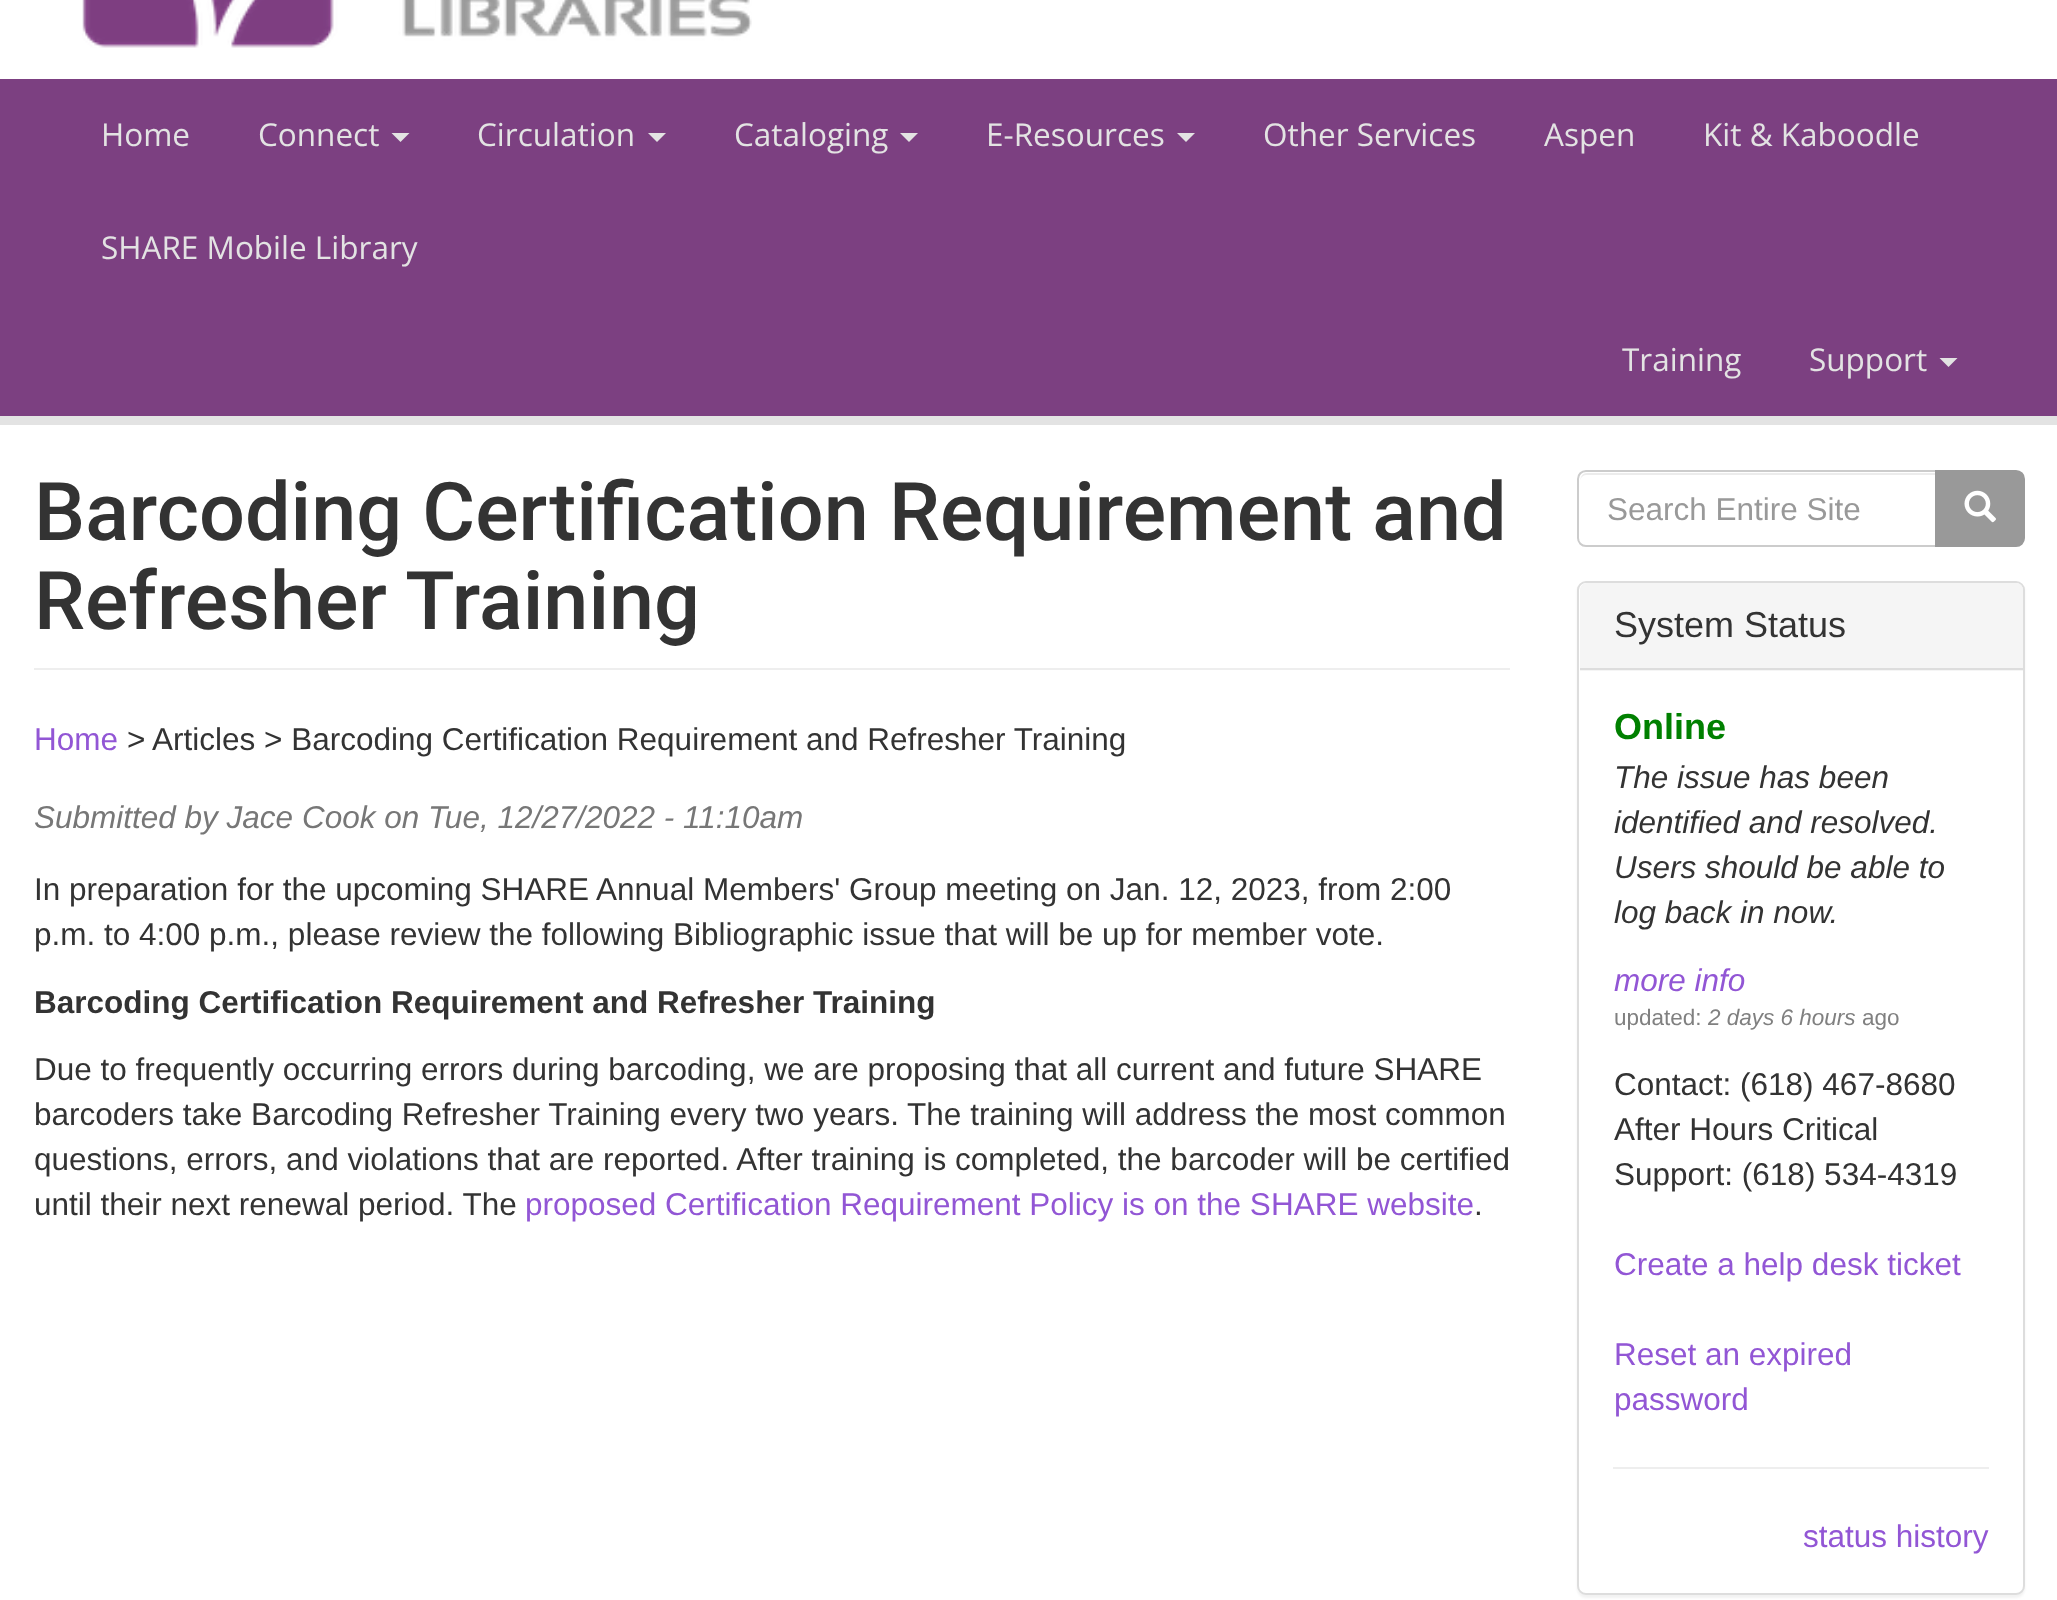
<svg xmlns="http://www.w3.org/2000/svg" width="2057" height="1600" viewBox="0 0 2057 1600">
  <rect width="100%" height="100%" fill="rgb(255,255,255)"/>
  <image x="82" y="0" width="670" height="48" href="pic1.png"/>
  <rect x="0" y="79" width="2057" height="337" fill="rgb(124,64,129)"/>
  <rect x="0" y="416" width="2057" height="9" fill="rgb(227,227,227)"/>
  <g font-family="Open Sans" font-size="31.5" fill="rgb(227,227,227)">
    <text x="101" y="146">Home</text>
    <text x="258" y="146">Connect</text>
  </g>
  <path d="M391.5 133H409.5L400.5 142Z" fill="rgb(227,227,227)"/>
  <text x="477" y="146" font-family="Open Sans" font-size="31.5" fill="rgb(227,227,227)">Circulation</text>
  <path d="M648 133H666L657 142Z" fill="rgb(227,227,227)"/>
  <text x="734" y="146" font-family="Open Sans" font-size="31.5" fill="rgb(227,227,227)">Cataloging</text>
  <path d="M900 133H918L909 142Z" fill="rgb(227,227,227)"/>
  <text x="986" y="146" font-family="Open Sans" font-size="31.5" fill="rgb(227,227,227)">E-Resources</text>
  <path d="M1177 133H1195L1186 142Z" fill="rgb(227,227,227)"/>
  <g font-family="Open Sans" font-size="31.5" fill="rgb(227,227,227)">
    <text x="1263" y="146">Other Services</text>
    <text x="1544" y="146">Aspen</text>
    <text x="1703" y="146">Kit &amp; Kaboodle</text>
    <text x="101" y="259">SHARE Mobile Library</text>
    <text x="1622" y="371">Training</text>
    <text x="1809" y="371">Support</text>
  </g>
  <path d="M1939.5 358H1957.5L1948.5 367Z" fill="rgb(227,227,227)"/>
  <rect x="34" y="668" width="1476" height="2" fill="rgb(238,238,238)"/>
  <g font-family="Roboto" font-size="81" font-weight="500" fill="rgb(51,51,51)">
    <text>
      <tspan x="34" y="540">Barcoding Certification Requirement and</tspan>
      <tspan x="34" y="629">Refresher Training</tspan>
    </text>
  </g>
  <text x="34" y="750" font-family="Liberation Sans" font-size="31.5" fill="rgb(146,86,213)">Home</text>
  <g font-family="Liberation Sans" font-size="31.5" fill="rgb(51,51,51)">
    <text x="127" y="750">&gt;</text>
    <text x="152" y="750">Articles &gt; Barcoding Certification Requirement and Refresher Training</text>
  </g>
  <text x="34" y="828" font-family="Liberation Sans" font-size="31.5" font-style="italic" fill="rgb(119,119,119)">Submitted by Jace Cook on Tue, 12/27/2022 - 11:10am</text>
  <g font-family="Liberation Sans" font-size="31.5" fill="rgb(51,51,51)">
    <text>
      <tspan x="34" y="900">In preparation for the upcoming SHARE Annual Members' Group meeting on Jan. 12, 2023, from 2:00</tspan>
      <tspan x="34" y="945">p.m. to 4:00 p.m., please review the following Bibliographic issue that will be up for member vote.</tspan>
    </text>
  </g>
  <text x="34" y="1013" font-family="Liberation Sans" font-size="31.5" font-weight="bold" fill="rgb(51,51,51)">Barcoding Certification Requirement and Refresher Training</text>
  <g font-family="Liberation Sans" font-size="31.5" fill="rgb(51,51,51)">
    <text>
      <tspan x="34" y="1080">Due to frequently occurring errors during barcoding, we are proposing that all current and future SHARE</tspan>
      <tspan x="34" y="1125">barcoders take Barcoding Refresher Training every two years. The training will address the most common</tspan>
      <tspan x="34" y="1170">questions, errors, and violations that are reported. After training is completed, the barcoder will be certified</tspan>
      <tspan x="34" y="1215">until their next renewal period. The</tspan>
    </text>
  </g>
  <text x="525" y="1215" font-family="Liberation Sans" font-size="31.5" fill="rgb(146,86,213)">proposed Certification Requirement Policy is on the SHARE website</text>
  <text x="1474" y="1215" font-family="Liberation Sans" font-size="31.5" fill="rgb(51,51,51)">.</text>
  <path d="M1586 475H1935V473H1587C1582 473 1580 478 1580 482C1580 478 1583 475 1586 475Z" fill="rgb(236,236,236)"/>
  <path d="M1586 471H1936V546H1586C1581.5 546 1578 542.5 1578 538V479C1578 474.5 1581.5 471 1586 471Z" fill="none" stroke="rgb(204,204,204)" stroke-width="2"/>
  <text x="1607" y="520" font-family="Liberation Sans" font-size="31.5" fill="rgb(153,153,153)">Search Entire Site</text>
  <path d="M1936 471H2016C2020.5 471 2024 474.5 2024 479V538C2024 542.5 2020.5 546 2016 546H1936Z" fill="rgb(153,153,153)" stroke="rgb(153,153,153)" stroke-width="2"/>
  <image x="1964" y="490" width="32" height="33" href="pic2.png"/>
  <rect x="1577" y="583" width="448" height="1015" rx="9" fill="rgba(0,0,0,0.05)" filter="blur(1px)"/>
  <rect x="1578" y="582" width="446" height="1012" rx="8" fill="rgb(255,255,255)" stroke="rgb(221,221,221)" stroke-width="2"/>
  <path d="M1587 583H2016C2020 583 2023 586 2023 590V671H1580V590C1580 586 1583 583 1587 583Z" fill="rgb(245,245,245)"/>
  <rect x="1580" y="668" width="443" height="2" fill="rgb(221,221,221)"/>
  <text x="1614" y="637" font-family="Liberation Sans" font-size="36" fill="rgb(51,51,51)">System Status</text>
  <text x="1614" y="739" font-family="Liberation Sans" font-size="36" font-weight="bold" fill="rgb(0,128,0)">Online</text>
  <g font-family="Liberation Sans" font-size="31.5" font-style="italic" fill="rgb(51,51,51)">
    <text>
      <tspan x="1614" y="788">The issue has been</tspan>
      <tspan x="1614" y="833">identified and resolved.</tspan>
      <tspan x="1614" y="878">Users should be able to</tspan>
      <tspan x="1614" y="923">log back in now.</tspan>
    </text>
  </g>
  <text x="1614" y="991" font-family="Liberation Sans" font-size="31.5" font-style="italic" fill="rgb(146,86,213)">more info</text>
  <text x="1614" y="1025" font-family="Liberation Sans" font-size="22.5" fill="rgb(128,128,128)">updated:</text>
  <text x="1708" y="1025" font-family="Liberation Sans" font-size="22.5" font-style="italic" fill="rgb(128,128,128)">2 days 6 hours</text>
  <text x="1862" y="1025" font-family="Liberation Sans" font-size="22.5" fill="rgb(128,128,128)">ago</text>
  <g font-family="Liberation Sans" font-size="31.5" fill="rgb(51,51,51)">
    <text>
      <tspan x="1614" y="1095">Contact: (618) 467-8680</tspan>
      <tspan x="1614" y="1140">After Hours Critical</tspan>
      <tspan x="1614" y="1185">Support: (618) 534-4319</tspan>
    </text>
  </g>
  <g font-family="Liberation Sans" font-size="31.5" fill="rgb(146,86,213)">
    <text x="1614" y="1275">Create a help desk ticket</text>
    <text>
      <tspan x="1614" y="1365">Reset an expired</tspan>
      <tspan x="1614" y="1410">password</tspan>
    </text>
  </g>
  <rect x="1613" y="1467" width="376" height="2" fill="rgb(238,238,238)"/>
  <text x="1803" y="1547" font-family="Liberation Sans" font-size="31.5" fill="rgb(146,86,213)">status history</text>
</svg>
